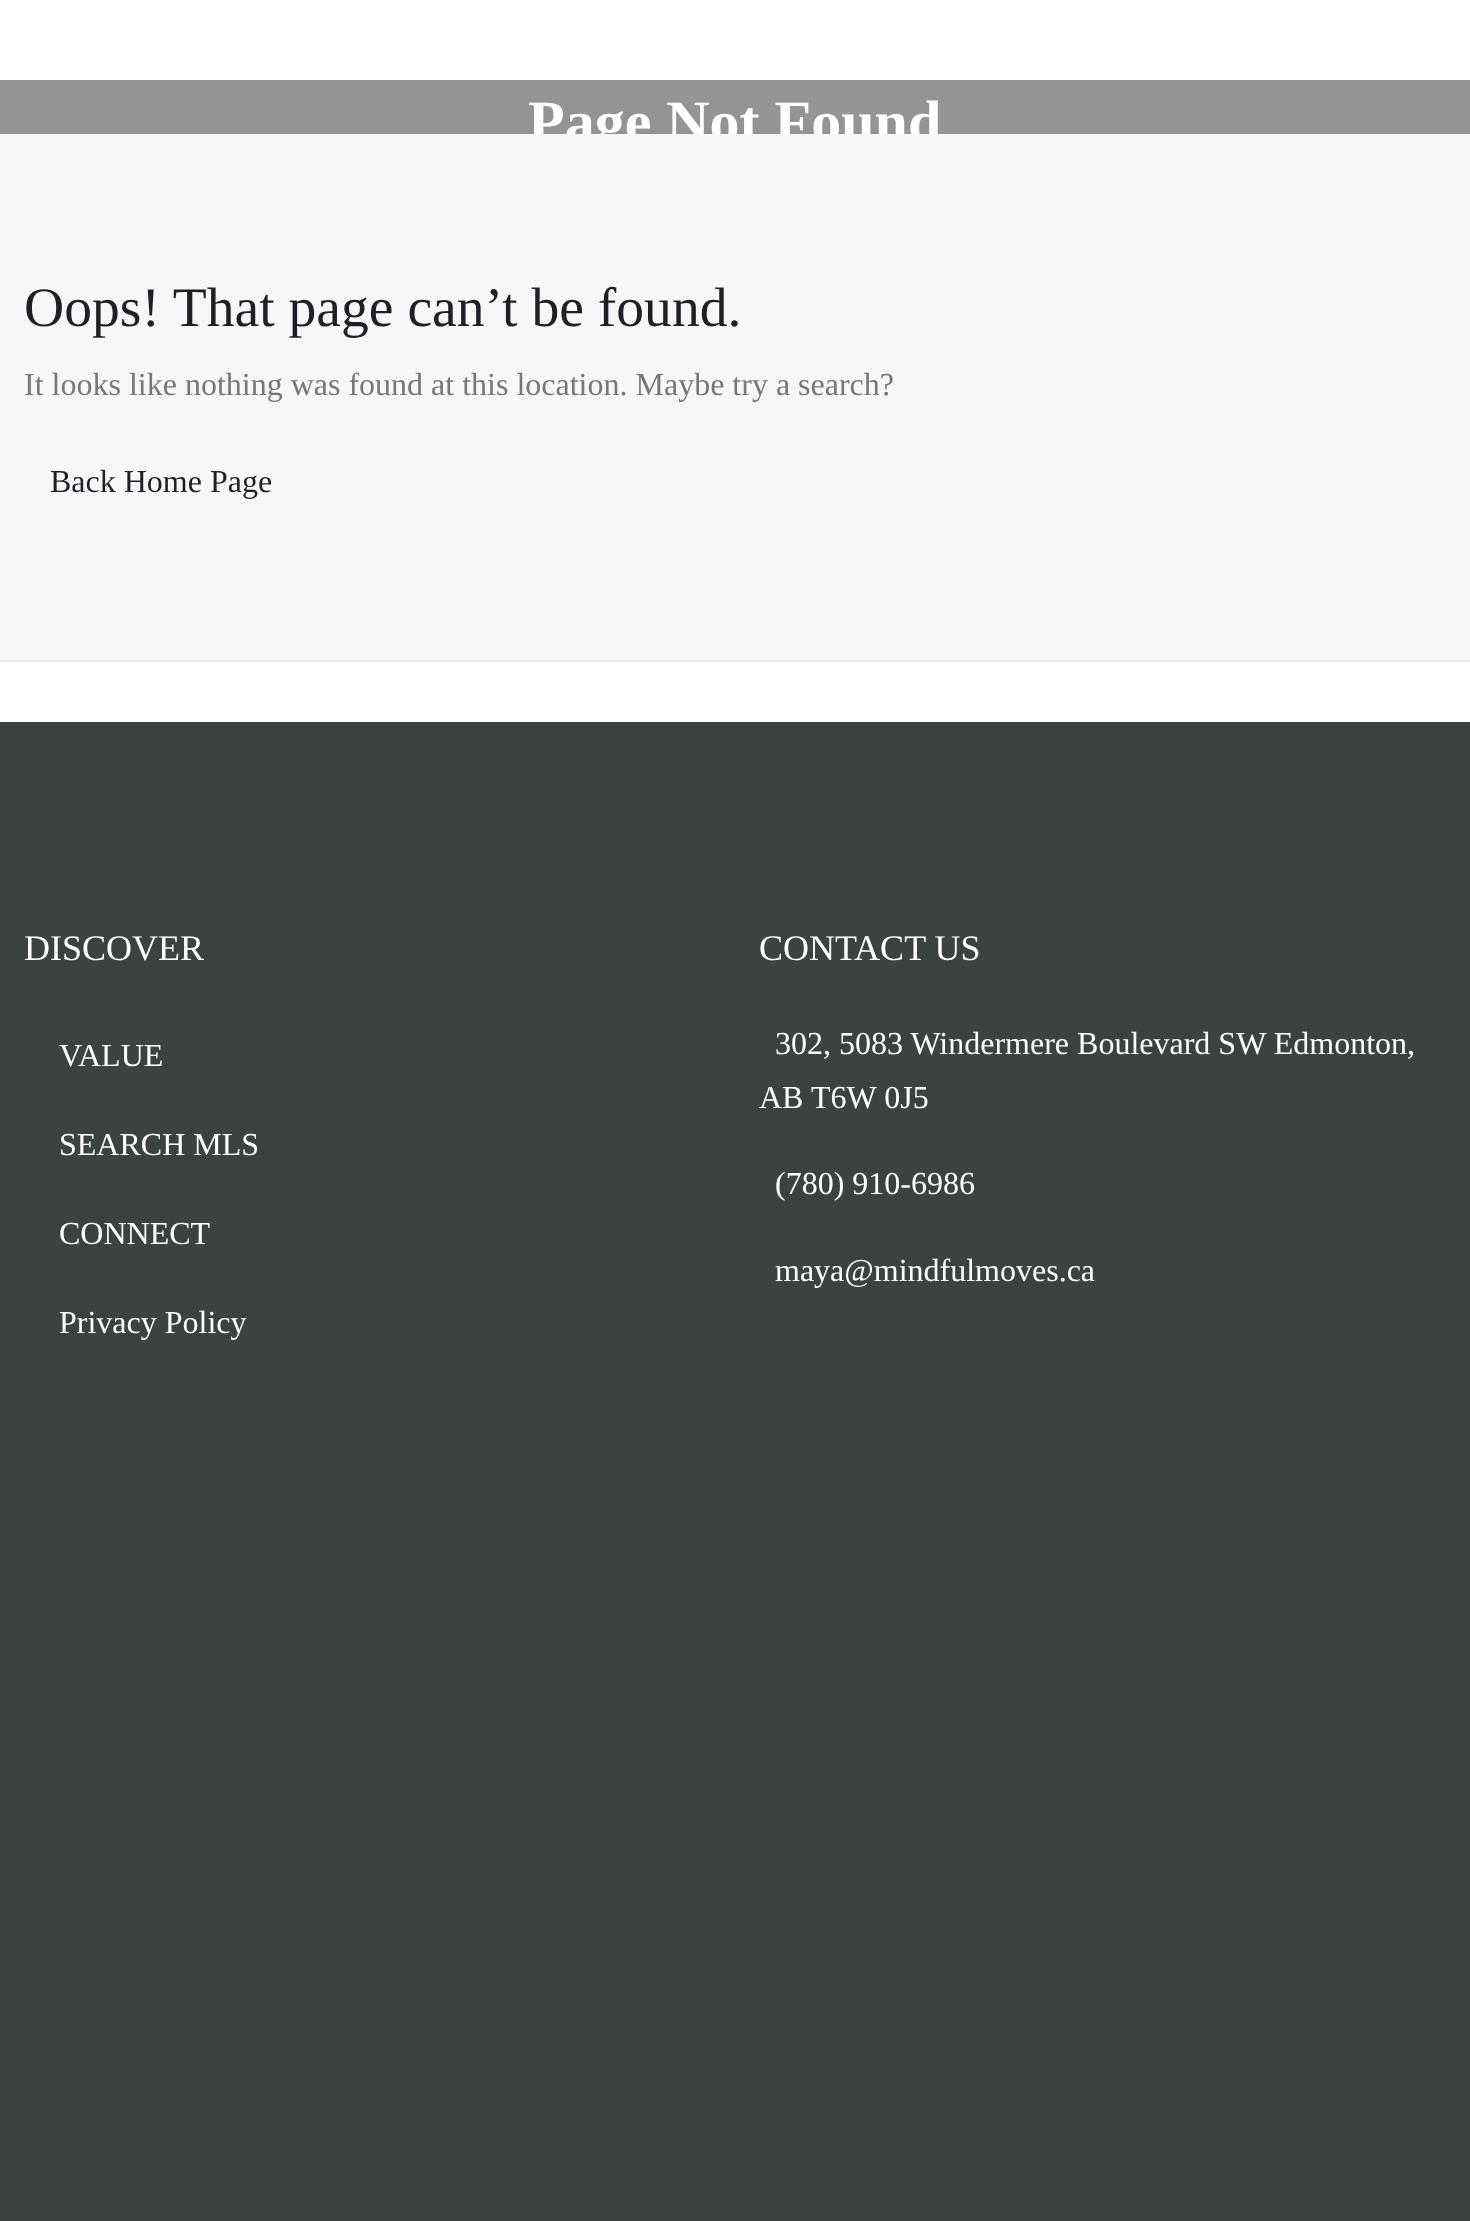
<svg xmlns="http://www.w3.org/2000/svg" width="1470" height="2221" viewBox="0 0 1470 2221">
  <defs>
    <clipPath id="clip1"><rect x="0" y="80" width="1470" height="54"/></clipPath>
  </defs>
  <rect width="100%" height="100%" fill="rgb(247,247,247)"/>
  <rect x="0" y="0" width="1470" height="80" fill="rgb(255,255,255)"/>
  <rect x="0" y="80" width="1470" height="54" fill="rgb(148,148,148)"/>
  <g clip-path="url(#clip1)">
    <text x="528" y="142" font-family="Liberation Serif" font-size="60" font-weight="bold" fill="rgb(255,255,255)">Page Not Found</text>
  </g>
  <text x="24" y="326" font-family="Liberation Serif" font-size="55.6" fill="rgb(31,32,38)">Oops! That page can’t be found.</text>
  <text x="24" y="395" font-family="Liberation Serif" font-size="32" fill="rgb(119,119,119)">It looks like nothing was found at this location. Maybe try a search?</text>
  <text x="50" y="492" font-family="Liberation Serif" font-size="32" fill="rgb(31,32,38)">Back Home Page</text>
  <rect x="0" y="662" width="1470" height="60" fill="rgb(255,255,255)"/>
  <rect x="0" y="660" width="1470" height="2" fill="rgb(236,236,236)"/>
  <rect x="0" y="722" width="1470" height="1499" fill="rgb(60,65,66)"/>
  <text x="24" y="960" font-family="Liberation Serif" font-size="36" fill="rgb(255,255,255)">DISCOVER</text>
  <g font-family="Liberation Serif" font-size="32" fill="rgb(255,255,255)">
    <text x="59" y="1066">VALUE</text>
    <text x="59" y="1155">SEARCH MLS</text>
    <text x="59" y="1244">CONNECT</text>
    <text x="59" y="1333">Privacy Policy</text>
  </g>
  <text x="759" y="960" font-family="Liberation Serif" font-size="36" fill="rgb(255,255,255)">CONTACT US</text>
  <g font-family="Liberation Serif" font-size="32" fill="rgb(255,255,255)">
    <text x="775" y="1054">302, 5083 Windermere Boulevard SW Edmonton,</text>
    <text x="759" y="1108">AB</text>
    <text x="811" y="1108">T6W 0J5</text>
    <text x="775" y="1194">(780) 910-6986</text>
    <text x="775" y="1281">maya@mindfulmoves.ca</text>
  </g>
</svg>
